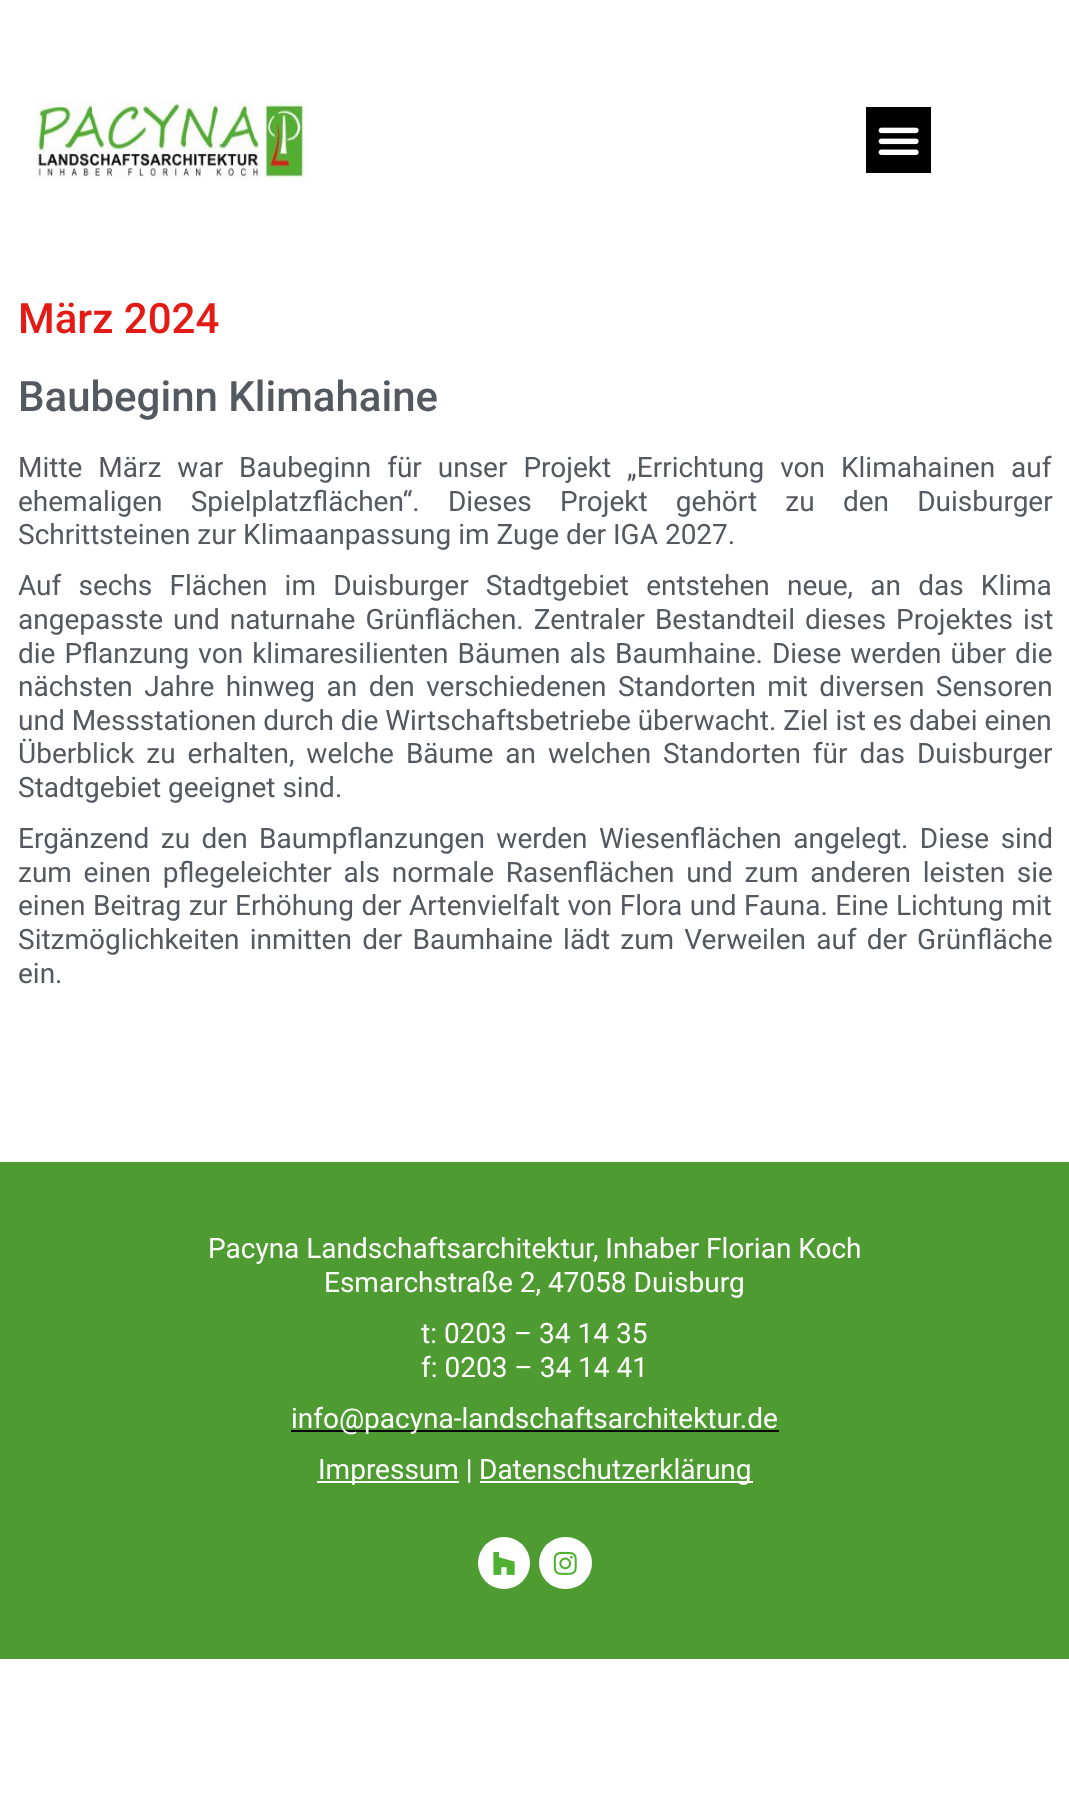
<svg xmlns="http://www.w3.org/2000/svg" width="1069" height="1800" viewBox="0 0 1069 1800">
  <rect width="100%" height="100%" fill="rgb(255,255,255)"/>
  <image x="35" y="101" width="271" height="79" href="pic1.png"/>
  <rect x="866" y="107" width="65" height="66" fill="rgb(0,0,0)"/>
  <image x="878" y="127" width="41" height="28" href="pic2.png"/>
  <text x="18" y="333" font-family="Roboto" font-size="42" font-weight="500" fill="rgb(228,27,21)">März 2024</text>
  <text x="18" y="411" font-family="Roboto" font-size="42" font-weight="500" fill="rgb(84,89,95)">Baubeginn Klimahaine</text>
  <g font-family="Roboto" font-size="28" fill="rgb(84,89,95)">
    <text>
      <tspan x="18" y="477" word-spacing="9">Mitte März war Baubeginn für unser Projekt „Errichtung von Klimahainen auf</tspan>
      <tspan x="18" y="511" word-spacing="21.25">ehemaligen Spielplatzflächen“. Dieses Projekt gehört zu den Duisburger</tspan>
      <tspan x="18" y="544">Schrittsteinen zur Klimaanpassung im Zuge der IGA 2027.</tspan>
      <tspan x="18" y="595" word-spacing="10.25">Auf sechs Flächen im Duisburger Stadtgebiet entstehen neue, an das Klima</tspan>
      <tspan x="18" y="629" word-spacing="3">angepasste und naturnahe Grünflächen. Zentraler Bestandteil dieses Projektes ist</tspan>
      <tspan x="18" y="663" word-spacing="2.1">die Pflanzung von klimaresilienten Bäumen als Baumhaine. Diese werden über die</tspan>
      <tspan x="18" y="696" word-spacing="4.5">nächsten Jahre hinweg an den verschiedenen Standorten mit diversen Sensoren</tspan>
      <tspan x="18" y="730">und Messstationen durch die Wirtschaftsbetriebe überwacht. Ziel ist es dabei einen</tspan>
      <tspan x="18" y="763" word-spacing="5">Überblick zu erhalten, welche Bäume an welchen Standorten für das Duisburger</tspan>
      <tspan x="18" y="797">Stadtgebiet geeignet sind.</tspan>
      <tspan x="18" y="848" word-spacing="4.5">Ergänzend zu den Baumpflanzungen werden Wiesenflächen angelegt. Diese sind</tspan>
      <tspan x="18" y="882" word-spacing="4.75">zum einen pflegeleichter als normale Rasenflächen und zum anderen leisten sie</tspan>
      <tspan x="18" y="915" word-spacing="0.6">einen Beitrag zur Erhöhung der Artenvielfalt von Flora und Fauna. Eine Lichtung mit</tspan>
      <tspan x="18" y="949" word-spacing="3.25">Sitzmöglichkeiten inmitten der Baumhaine lädt zum Verweilen auf der Grünfläche</tspan>
      <tspan x="18" y="983">ein.</tspan>
    </text>
  </g>
  <rect x="0" y="1162" width="1069" height="497" fill="rgb(78,155,50)"/>
  <g font-family="Roboto" font-size="28" fill="rgb(255,255,255)">
    <text x="208" y="1258">Pacyna Landschaftsarchitektur, Inhaber Florian Koch</text>
    <text x="324" y="1292">Esmarchstraße 2, 47058 Duisburg</text>
    <text>
      <tspan x="421" y="1343">t: 0203 – 34 14 35</tspan>
      <tspan x="421" y="1377">f: 0203 – 34 14 41</tspan>
    </text>
  </g>
  <rect x="291" y="1430" width="488" height="2" fill="rgb(0,0,0)"/>
  <text x="291" y="1428" font-family="Roboto" font-size="28" fill="rgb(255,255,255)">info@pacyna-landschaftsarchitektur.de</text>
  <rect x="317" y="1481" width="142" height="2" fill="rgb(255,255,255)"/>
  <text x="318" y="1479" font-family="Roboto" font-size="28" fill="rgb(255,255,255)">Impressum |</text>
  <rect x="480" y="1481" width="273" height="2" fill="rgb(255,255,255)"/>
  <text x="479" y="1479" font-family="Roboto" font-size="28" fill="rgb(255,255,255)">Datenschutzerklärung</text>
  <circle cx="504" cy="1563" r="26" fill="rgb(255,255,255)"/>
  <image x="493" y="1551" width="22" height="24" href="pic3.png"/>
  <rect x="539" y="1537" width="53" height="52" rx="26" fill="rgb(255,255,255)"/>
  <image x="553" y="1551" width="24" height="24" href="pic4.png"/>
</svg>
